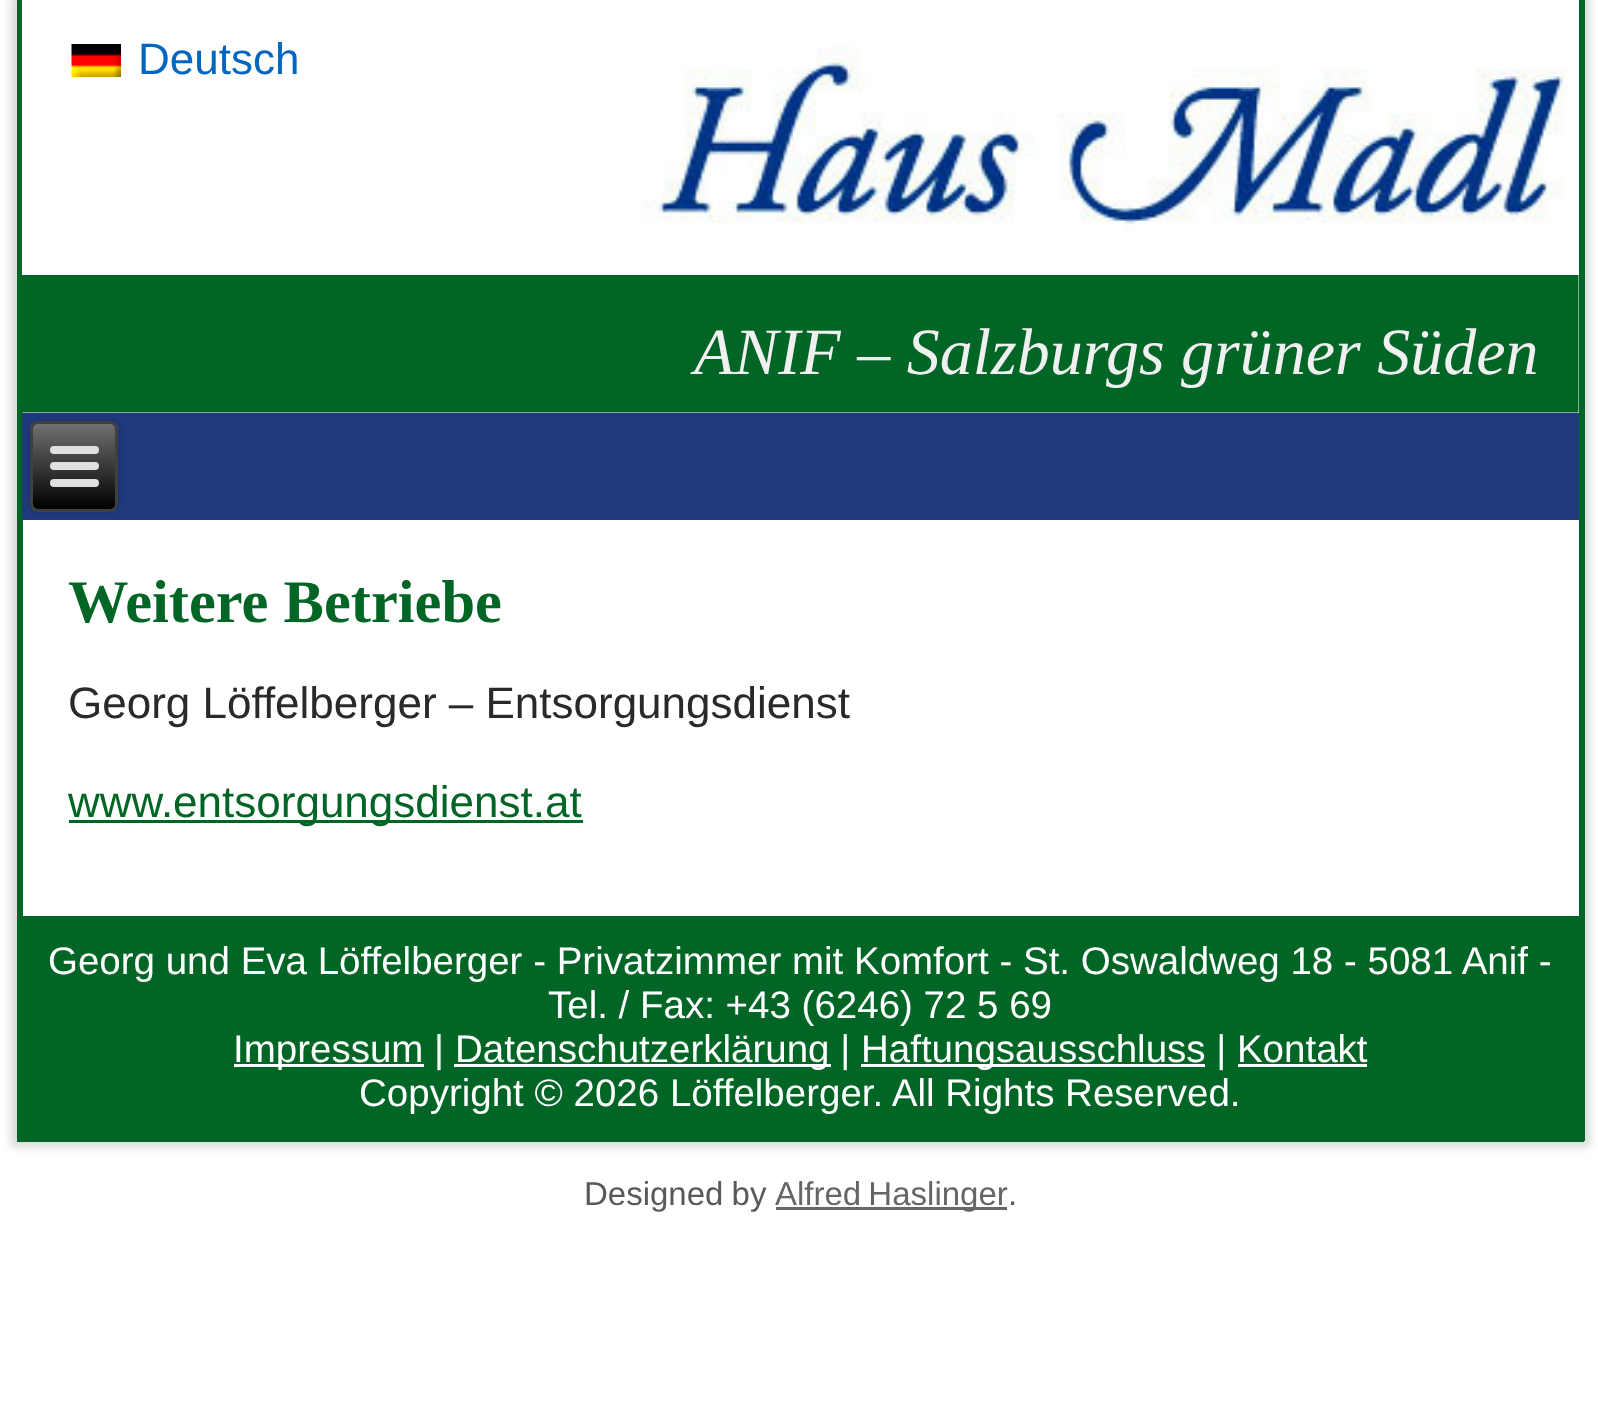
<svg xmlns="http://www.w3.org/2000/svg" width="1598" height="1409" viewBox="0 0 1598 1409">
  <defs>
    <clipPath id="clip1"><path d="M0 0H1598V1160H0ZM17 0H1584V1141H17Z" clip-rule="evenodd"/></clipPath>
    <clipPath id="clip2"><rect x="30" y="421" width="88" height="91" rx="8"/></clipPath>
    <linearGradient id="g1" gradientUnits="userSpaceOnUse" x1="74" y1="424" x2="74" y2="509"><stop offset="0" stop-color="rgb(112,112,112)"/><stop offset="1" stop-color="rgb(0,0,0)"/></linearGradient>
  </defs>
  <rect width="100%" height="100%" fill="rgb(255,255,255)"/>
  <g clip-path="url(#clip1)">
    <rect x="11" y="-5" width="1579" height="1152" fill="rgba(0,0,0,0.15)" filter="blur(4px)"/>
  </g>
  <rect x="1579" y="0" width="6" height="1141" fill="rgb(1,101,37)"/>
  <rect x="17" y="1136" width="1567" height="6" fill="rgb(1,101,37)"/>
  <rect x="17" y="0" width="6" height="1141" fill="rgb(1,101,37)"/>
  <image x="22" y="0" width="1557" height="413" href="pic1.png"/>
  <image x="71" y="44" width="50" height="33" href="pic2.png"/>
  <text x="138" y="74" font-family="Liberation Sans" font-size="44" fill="rgb(0,102,191)">Deutsch</text>
  <text x="694" y="374" font-family="Liberation Serif" font-size="66" font-style="italic" fill="rgb(240,240,240)">ANIF – Salzburgs grüner Süden</text>
  <rect x="22" y="413" width="1557" height="107" fill="rgb(32,58,127)"/>
  <rect x="30" y="421" width="88" height="91" rx="8" fill="rgba(0,0,0,0.2)" filter="blur(4px)"/>
  <g clip-path="url(#clip2)">
    <rect x="30" y="424" width="88" height="85" fill="url(#g1)"/>
  </g>
  <rect x="31.5" y="422.5" width="85" height="88" rx="6.5" fill="none" stroke="rgb(64,64,64)" stroke-width="3"/>
  <rect x="50" y="446" width="49" height="8" rx="4" fill="rgb(224,224,224)"/>
  <rect x="50" y="462" width="49" height="8" rx="4" fill="rgb(224,224,224)"/>
  <rect x="50" y="479" width="49" height="8" rx="4" fill="rgb(224,224,224)"/>
  <text x="68" y="622" font-family="Liberation Serif" font-size="60.5" font-weight="bold" fill="rgb(1,101,37)">Weitere Betriebe</text>
  <text x="68" y="718" font-family="Liberation Sans" font-size="44" fill="rgb(41,41,41)">Georg Löffelberger – Entsorgungsdienst</text>
  <rect x="69" y="820" width="514" height="3" fill="rgb(1,101,37)"/>
  <text x="68" y="817" font-family="Liberation Sans" font-size="44" fill="rgb(1,101,37)">www.entsorgungsdienst.at</text>
  <rect x="23" y="916" width="1556" height="220" fill="rgb(1,101,37)"/>
  <g font-family="Liberation Sans" font-size="38.5" fill="rgb(255,255,255)">
    <text x="48" y="974">Georg und Eva Löffelberger - Privatzimmer mit Komfort - St. Oswaldweg 18 - 5081 Anif -</text>
    <text x="548" y="1018">Tel. / Fax: +43 (6246) 72 5 69</text>
  </g>
  <rect x="234" y="1064" width="190" height="3" fill="rgb(255,255,255)"/>
  <text x="233" y="1062" font-family="Liberation Sans" font-size="38.5" fill="rgb(255,255,255)">Impressum |</text>
  <rect x="454" y="1064" width="377" height="3" fill="rgb(255,255,255)"/>
  <text x="455" y="1062" font-family="Liberation Sans" font-size="38.5" fill="rgb(255,255,255)">Datenschutzerklärung |</text>
  <rect x="861" y="1064" width="344" height="3" fill="rgb(255,255,255)"/>
  <text x="861" y="1062" font-family="Liberation Sans" font-size="38.5" fill="rgb(255,255,255)">Haftungsausschluss | Kontakt</text>
  <rect x="1238" y="1064" width="129" height="3" fill="rgb(255,255,255)"/>
  <text x="359" y="1106" font-family="Liberation Sans" font-size="38.5" fill="rgb(255,255,255)">Copyright © 2026 Löffelberger. All Rights Reserved.</text>
  <text x="584" y="1205" word-spacing="-1" font-family="Liberation Sans" font-size="33" fill="rgb(89,89,89)">Designed by</text>
  <rect x="776" y="1207" width="231" height="3" fill="rgb(102,102,102)"/>
  <text x="775" y="1205" word-spacing="-2" font-family="Liberation Sans" font-size="33" fill="rgb(102,102,102)">Alfred Haslinger</text>
  <text x="1008" y="1205" font-family="Liberation Sans" font-size="33" fill="rgb(89,89,89)">.</text>
</svg>
